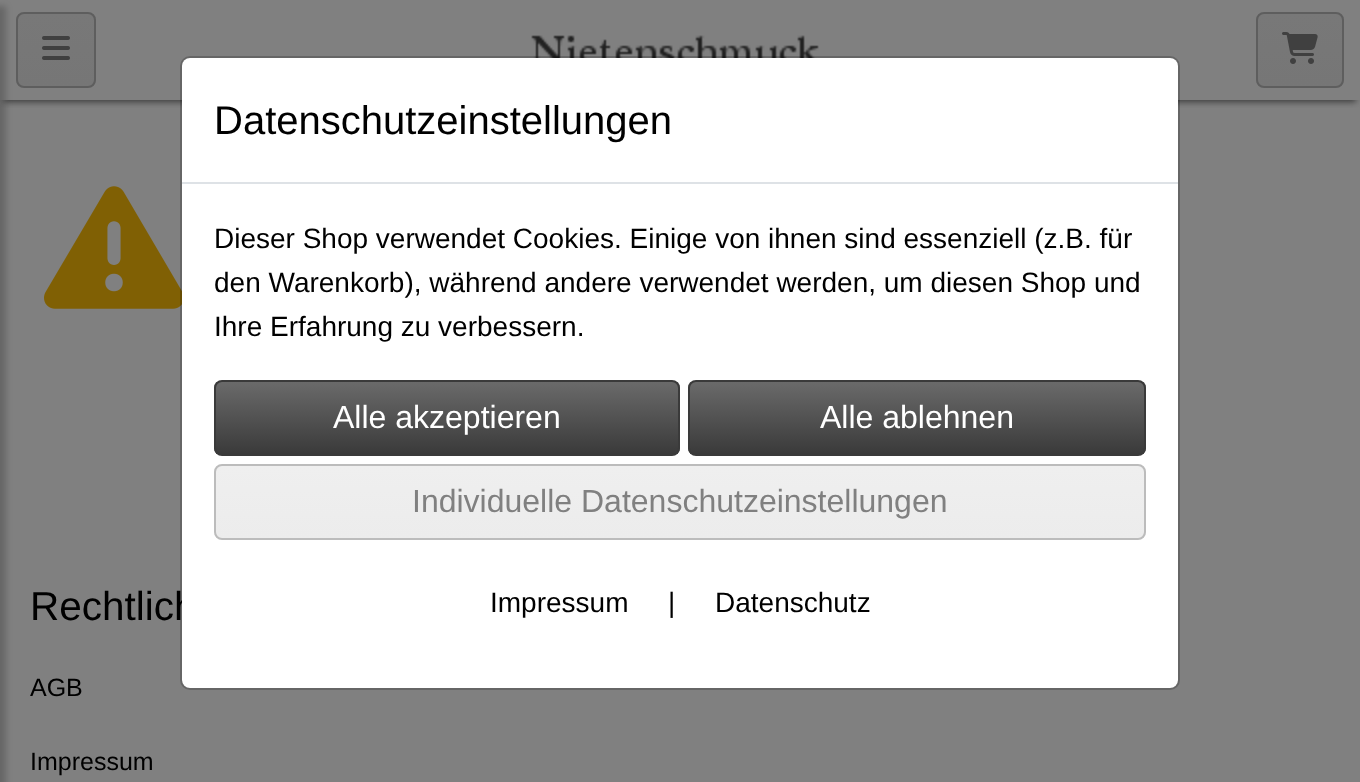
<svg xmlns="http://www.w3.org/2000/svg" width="1360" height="782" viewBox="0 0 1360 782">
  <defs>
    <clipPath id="clip1"><rect x="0" y="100" width="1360" height="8"/></clipPath>
    <clipPath id="clip2"><rect x="214" y="380" width="466" height="76" rx="8"/></clipPath>
    <linearGradient id="g1" gradientUnits="userSpaceOnUse" x1="447" y1="382" x2="447" y2="454"><stop offset="0" stop-color="rgb(106,106,106)"/><stop offset="1" stop-color="rgb(58,58,58)"/></linearGradient>
    <clipPath id="clip3"><rect x="688" y="380" width="458" height="76" rx="8"/></clipPath>
    <linearGradient id="g2" gradientUnits="userSpaceOnUse" x1="917" y1="382" x2="917" y2="454"><stop offset="0" stop-color="rgb(106,106,106)"/><stop offset="1" stop-color="rgb(58,58,58)"/></linearGradient>
    <clipPath id="clip4"><rect x="214" y="464" width="932" height="76" rx="8"/></clipPath>
    <linearGradient id="g3" gradientUnits="userSpaceOnUse" x1="680" y1="466" x2="680" y2="538"><stop offset="0" stop-color="rgb(239,239,239)"/><stop offset="1" stop-color="rgb(236,236,236)"/></linearGradient>
    <clipPath id="clip5"><rect x="16" y="12" width="80" height="76" rx="8"/></clipPath>
    <linearGradient id="g4" gradientUnits="userSpaceOnUse" x1="56" y1="14" x2="56" y2="86"><stop offset="0" stop-color="rgb(120,120,120)"/><stop offset="1" stop-color="rgb(118,118,118)"/></linearGradient>
    <clipPath id="clip6"><rect x="1256" y="12" width="88" height="76" rx="8"/></clipPath>
    <linearGradient id="g5" gradientUnits="userSpaceOnUse" x1="1300" y1="14" x2="1300" y2="86"><stop offset="0" stop-color="rgb(120,120,120)"/><stop offset="1" stop-color="rgb(118,118,118)"/></linearGradient>
  </defs>
  <rect width="100%" height="100%" fill="rgb(128,128,128)"/>
  <g clip-path="url(#clip1)">
    <rect x="4" y="10" width="1352" height="92" fill="rgb(60,60,60)" filter="blur(3px)"/>
  </g>
  <text x="30" y="620" font-family="Liberation Sans" font-size="40.5" fill="rgb(0,0,0)">Rechtlich</text>
  <rect x="182" y="58" width="996" height="630" rx="8" fill="rgb(255,255,255)"/>
  <image x="531" y="35" width="290" height="23" href="pic2.png"/>
  <image x="44" y="186" width="138" height="123" href="pic4.png"/>
  <rect x="181" y="57" width="998" height="632" rx="9" fill="none" stroke="rgba(0,0,0,0.2)" stroke-width="2"/>
  <rect x="182" y="182" width="996" height="2" fill="rgb(222,226,230)"/>
  <text x="214" y="134" font-family="Liberation Sans" font-size="40" fill="rgb(0,0,0)">Datenschutzeinstellungen</text>
  <g font-family="Liberation Sans" font-size="28" fill="rgb(0,0,0)">
    <text>
      <tspan x="214" y="248">Dieser Shop verwendet Cookies. Einige von ihnen sind essenziell (z.B. für</tspan>
      <tspan x="214" y="292">den Warenkorb), während andere verwendet werden, um diesen Shop und</tspan>
      <tspan x="214" y="336">Ihre Erfahrung zu verbessern.</tspan>
    </text>
  </g>
  <g clip-path="url(#clip2)">
    <rect x="214" y="382" width="466" height="72" fill="url(#g1)"/>
  </g>
  <rect x="215" y="381" width="464" height="74" rx="7" fill="none" stroke="rgb(58,58,58)" stroke-width="2"/>
  <text x="333" y="428" font-family="Liberation Sans" font-size="32" fill="rgb(255,255,255)">Alle akzeptieren</text>
  <g clip-path="url(#clip3)">
    <rect x="688" y="382" width="458" height="72" fill="url(#g2)"/>
  </g>
  <rect x="689" y="381" width="456" height="74" rx="7" fill="none" stroke="rgb(58,58,58)" stroke-width="2"/>
  <text x="820" y="428" font-family="Liberation Sans" font-size="32" fill="rgb(255,255,255)">Alle ablehnen</text>
  <g clip-path="url(#clip4)">
    <rect x="214" y="466" width="932" height="72" fill="url(#g3)"/>
  </g>
  <rect x="215" y="465" width="930" height="74" rx="7" fill="none" stroke="rgb(188,188,188)" stroke-width="2"/>
  <text x="412" y="512" font-family="Liberation Sans" font-size="32" fill="rgb(128,128,128)">Individuelle Datenschutzeinstellungen</text>
  <g font-family="Liberation Sans" font-size="28" fill="rgb(0,0,0)">
    <text x="490" y="612">Impressum</text>
    <text x="668" y="612">|</text>
    <text x="715" y="612">Datenschutz</text>
  </g>
  <g clip-path="url(#clip5)">
    <rect x="16" y="14" width="80" height="72" fill="url(#g4)"/>
  </g>
  <rect x="17" y="13" width="78" height="74" rx="7" fill="none" stroke="rgb(94,94,94)" stroke-width="2"/>
  <image x="42" y="36" width="28" height="24" href="pic1.png"/>
  <g clip-path="url(#clip6)">
    <rect x="1256" y="14" width="88" height="72" fill="url(#g5)"/>
  </g>
  <rect x="1257" y="13" width="86" height="74" rx="7" fill="none" stroke="rgb(94,94,94)" stroke-width="2"/>
  <image x="1282" y="32" width="36" height="32" href="pic3.png"/>
  <rect x="-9" y="6" width="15" height="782" fill="rgba(0,0,0,0.2)" filter="blur(3px)"/>
  <g font-family="Liberation Sans" font-size="25" fill="rgb(0,0,0)">
    <text x="30" y="696">AGB</text>
    <text x="30" y="770">Impressum</text>
  </g>
</svg>
